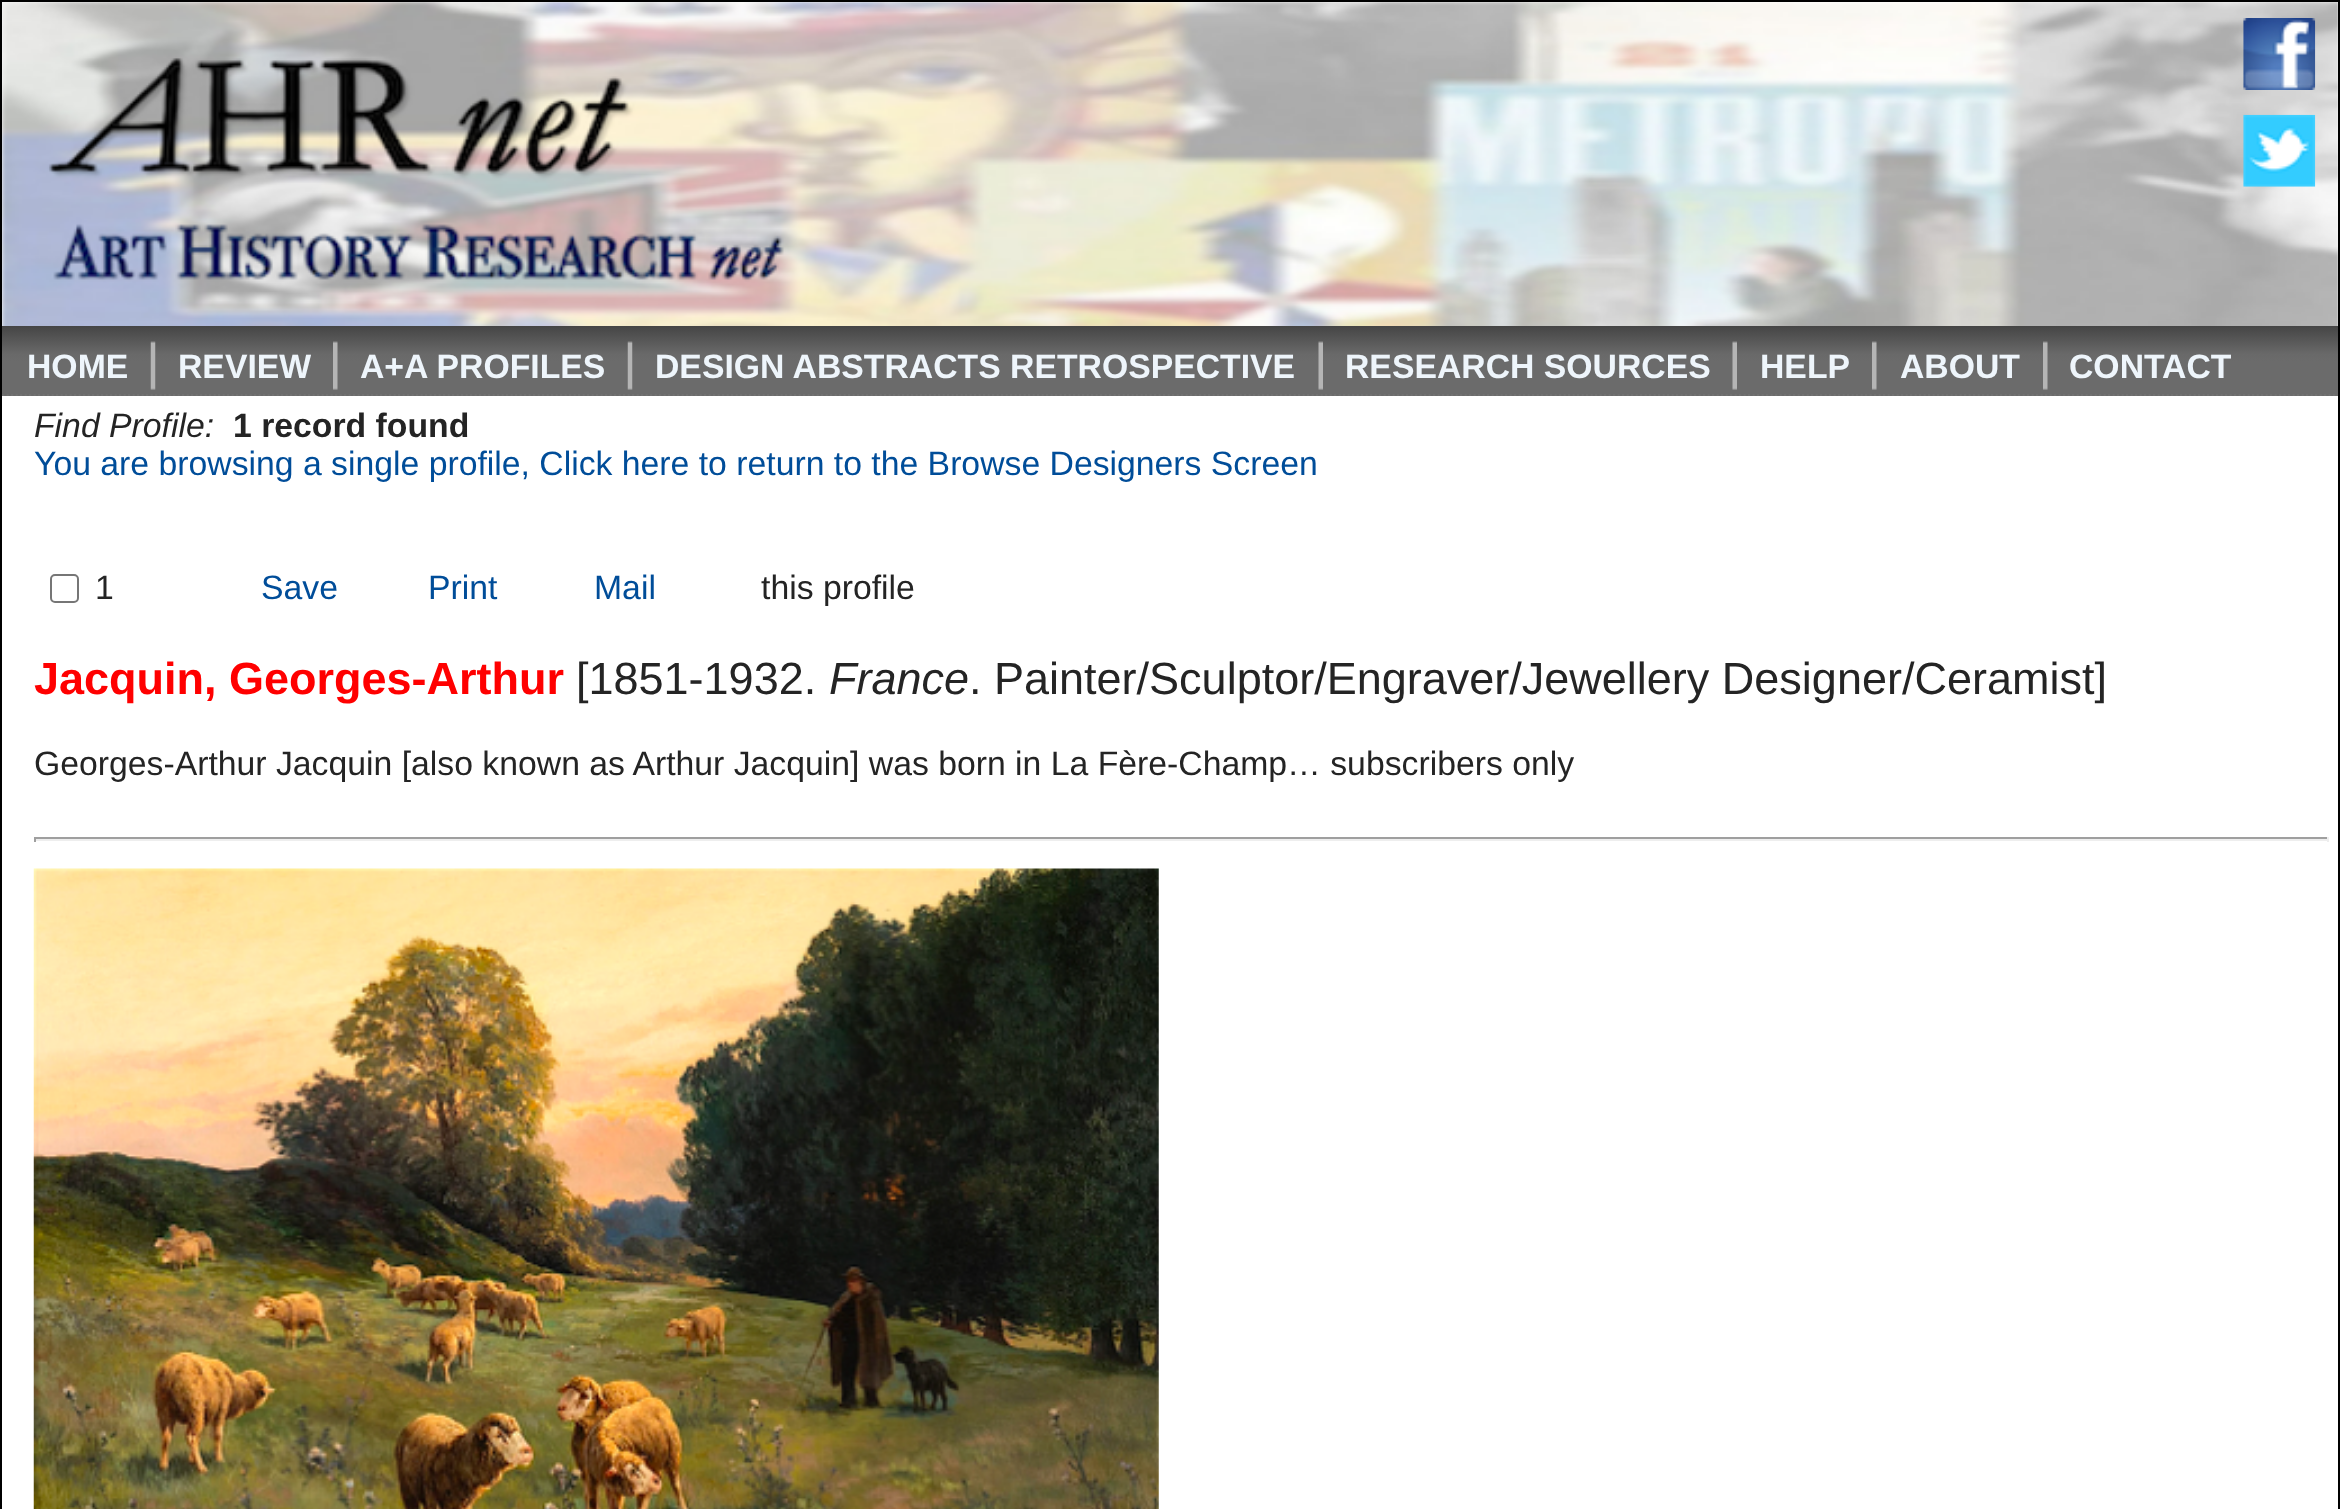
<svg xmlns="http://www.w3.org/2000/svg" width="2340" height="1509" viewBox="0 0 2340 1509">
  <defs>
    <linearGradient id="g1" gradientUnits="userSpaceOnUse" x1="1170" y1="326" x2="1170" y2="396"><stop offset="0" stop-color="rgb(69,69,69)"/><stop offset="0.4" stop-color="rgb(105,105,105)"/><stop offset="0.5" stop-color="rgb(107,107,107)"/><stop offset="1" stop-color="rgb(107,107,107)"/></linearGradient>
  </defs>
  <rect width="100%" height="100%" fill="rgb(255,255,255)"/>
  <rect x="1" y="1" width="2338" height="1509" fill="none" stroke="rgb(0,0,0)" stroke-width="2"/>
  <image x="2" y="2" width="2336" height="324" href="pic1.png"/>
  <image x="2243" y="18" width="73" height="72" href="pic2.png"/>
  <image x="2243" y="114" width="73" height="73" href="pic3.png"/>
  <rect x="2" y="326" width="2336" height="70" fill="url(#g1)"/>
  <path d="M2 395H2338" fill="none" stroke="rgb(113,113,113)" stroke-width="2.2" stroke-dasharray="2.25 2.25"/>
  <text x="27" y="378" font-family="Liberation Sans" font-size="33.75" font-weight="bold" fill="rgb(238,245,251)">HOME</text>
  <image x="150" y="341" width="6" height="49" href="pic4.png"/>
  <text x="178" y="378" font-family="Liberation Sans" font-size="33.75" font-weight="bold" fill="rgb(238,245,251)">REVIEW</text>
  <image x="333" y="341" width="5" height="49" href="pic5.png"/>
  <text x="360" y="378" font-family="Liberation Sans" font-size="33.75" font-weight="bold" fill="rgb(238,245,251)">A+A PROFILES</text>
  <image x="627" y="341" width="6" height="49" href="pic4.png"/>
  <text x="655" y="378" font-family="Liberation Sans" font-size="33.75" font-weight="bold" fill="rgb(238,245,251)">DESIGN ABSTRACTS RETROSPECTIVE</text>
  <image x="1318" y="341" width="5" height="49" href="pic6.png"/>
  <text x="1345" y="378" font-family="Liberation Sans" font-size="33.75" font-weight="bold" fill="rgb(238,245,251)">RESEARCH SOURCES</text>
  <image x="1732" y="341" width="5" height="49" href="pic6.png"/>
  <text x="1760" y="378" font-family="Liberation Sans" font-size="33.75" font-weight="bold" fill="rgb(238,245,251)">HELP</text>
  <image x="1872" y="341" width="5" height="49" href="pic5.png"/>
  <text x="1900" y="378" font-family="Liberation Sans" font-size="33.75" font-weight="bold" fill="rgb(238,245,251)">ABOUT</text>
  <image x="2043" y="341" width="5" height="49" href="pic5.png"/>
  <text x="2069" y="378" font-family="Liberation Sans" font-size="33.75" font-weight="bold" fill="rgb(238,245,251)">CONTACT</text>
  <text x="34" y="437" font-family="Liberation Sans" font-size="33.75" font-style="italic" fill="rgb(36,36,36)">Find Profile:</text>
  <text x="233" y="437" font-family="Liberation Sans" font-size="33.75" font-weight="bold" fill="rgb(36,36,36)">1 record found</text>
  <text x="34" y="475" font-family="Liberation Sans" font-size="33.75" fill="rgb(0,77,153)">You are browsing a single profile, Click here to return to the Browse Designers Screen</text>
  <rect x="51" y="575" width="27" height="27" rx="4" fill="none" stroke="rgb(118,118,118)" stroke-width="2"/>
  <text x="95" y="599" font-family="Liberation Sans" font-size="33.75" fill="rgb(36,36,36)">1</text>
  <g font-family="Liberation Sans" font-size="33.75" fill="rgb(0,77,153)">
    <text x="261" y="599">Save</text>
    <text x="428" y="599">Print</text>
    <text x="594" y="599">Mail</text>
  </g>
  <text x="761" y="599" font-family="Liberation Sans" font-size="33.75" fill="rgb(36,36,36)">this profile</text>
  <text x="34" y="694" font-family="Liberation Sans" font-size="45" font-weight="bold" fill="rgb(255,0,0)">Jacquin, Georges-Arthur</text>
  <text x="576" y="694" font-family="Liberation Sans" font-size="45" fill="rgb(36,36,36)">[1851-1932.</text>
  <text x="829" y="694" font-family="Liberation Sans" font-size="45" font-style="italic" fill="rgb(36,36,36)">France</text>
  <text x="969" y="694" font-family="Liberation Sans" font-size="45" fill="rgb(36,36,36)">. Painter/Sculptor/Engraver/Jewellery Designer/Ceramist]</text>
  <text x="34" y="775" font-family="Liberation Sans" font-size="33.75" fill="rgb(36,36,36)">Georges-Arthur Jacquin [also known as Arthur Jacquin] was born in La Fère-Champ… subscribers only</text>
  <rect x="34" y="837" width="2295" height="2" fill="rgb(159,159,159)"/>
  <rect x="2327" y="837" width="2" height="5" fill="rgb(238,238,238)"/>
  <rect x="34" y="839" width="2295" height="2" fill="rgb(238,238,238)"/>
  <rect x="34" y="837" width="2" height="5" fill="rgb(159,159,159)"/>
  <image x="33" y="868" width="1126" height="641" href="pic7.png"/>
</svg>
